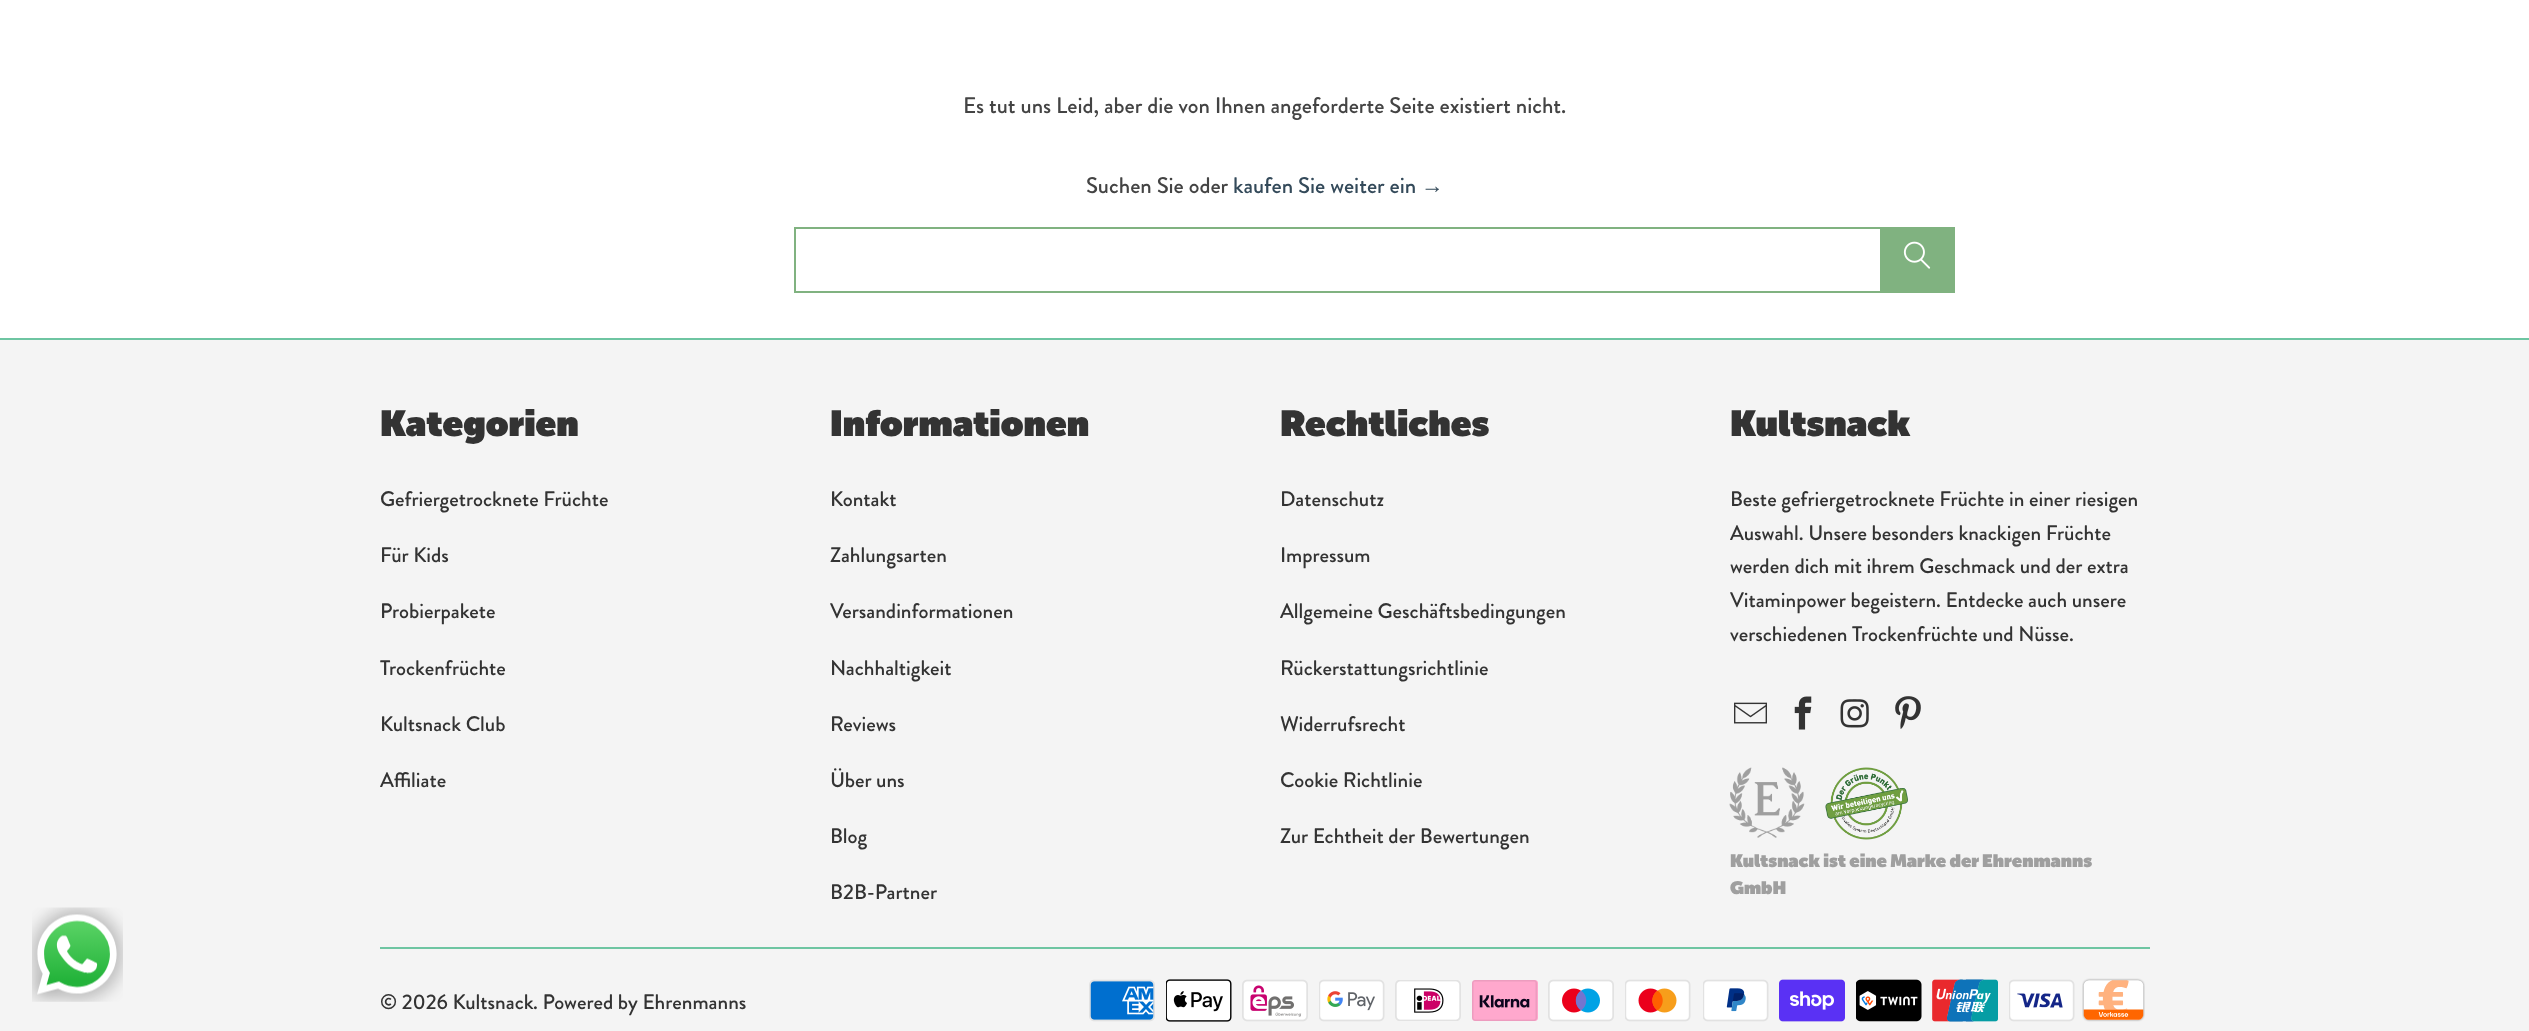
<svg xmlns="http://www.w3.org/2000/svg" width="2529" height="1031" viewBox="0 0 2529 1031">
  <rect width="100%" height="100%" fill="rgb(255,255,255)"/>
  <g font-family="Brandon Grotesque" font-size="22.5" font-weight="500" fill="rgb(68,68,68)">
    <text x="963" y="113">Es tut uns Leid, aber die von Ihnen angeforderte Seite existiert nicht.</text>
    <text x="1086" y="193">Suchen Sie oder</text>
  </g>
  <text x="1233" y="193" font-family="Brandon Grotesque" font-size="22.5" font-weight="500" fill="rgb(52,74,90)">kaufen Sie weiter ein</text>
  <text x="1421" y="193" font-family="Liberation Serif" font-size="22.5" fill="rgb(52,74,90)">→</text>
  <rect x="795" y="228" width="1159" height="64" fill="none" stroke="rgb(128,178,128)" stroke-width="2"/>
  <rect x="1880" y="229" width="73" height="62" fill="rgb(128,178,128)"/>
  <image x="1903" y="241" width="28" height="28" href="pic1.png"/>
  <rect x="0" y="340" width="2529" height="691" fill="rgb(244,244,244)"/>
  <image x="32" y="907" width="91" height="95" href="pic2.png"/>
  <rect x="0" y="338" width="2529" height="2" fill="rgb(110,197,162)"/>
  <text x="380" y="436" font-family="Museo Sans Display" font-size="36" font-weight="800" fill="rgb(51,51,51)">Kategorien</text>
  <g font-family="Brandon Grotesque" font-size="21" font-weight="500" fill="rgb(51,51,51)">
    <text x="380" y="506">Gefriergetrocknete Früchte</text>
    <text x="380" y="562">Für Kids</text>
    <text x="380" y="618">Probierpakete</text>
    <text x="380" y="675">Trockenfrüchte</text>
    <text x="380" y="731">Kultsnack Club</text>
    <text x="380" y="787">Affiliate</text>
  </g>
  <text x="830" y="436" font-family="Museo Sans Display" font-size="36" font-weight="800" fill="rgb(51,51,51)">Informationen</text>
  <g font-family="Brandon Grotesque" font-size="21" font-weight="500" fill="rgb(51,51,51)">
    <text x="830" y="506">Kontakt</text>
    <text x="830" y="562">Zahlungsarten</text>
    <text x="830" y="618">Versandinformationen</text>
    <text x="830" y="675">Nachhaltigkeit</text>
    <text x="830" y="731">Reviews</text>
    <text x="830" y="787">Über uns</text>
    <text x="830" y="843">Blog</text>
    <text x="830" y="899">B2B-Partner</text>
  </g>
  <text x="1280" y="436" font-family="Museo Sans Display" font-size="36" font-weight="800" fill="rgb(51,51,51)">Rechtliches</text>
  <g font-family="Brandon Grotesque" font-size="21" font-weight="500" fill="rgb(51,51,51)">
    <text x="1280" y="506">Datenschutz</text>
    <text x="1280" y="562">Impressum</text>
    <text x="1280" y="618">Allgemeine Geschäftsbedingungen</text>
    <text x="1280" y="675">Rückerstattungsrichtlinie</text>
    <text x="1280" y="731">Widerrufsrecht</text>
    <text x="1280" y="787">Cookie Richtlinie</text>
    <text x="1280" y="843">Zur Echtheit der Bewertungen</text>
  </g>
  <text x="1730" y="436" font-family="Museo Sans Display" font-size="36" font-weight="800" fill="rgb(51,51,51)">Kultsnack</text>
  <g font-family="Brandon Grotesque" font-size="21" font-weight="500" fill="rgb(51,51,51)">
    <text>
      <tspan x="1730" y="506">Beste gefriergetrocknete Früchte in einer riesigen</tspan>
      <tspan x="1730" y="540">Auswahl. Unsere besonders knackigen Früchte</tspan>
      <tspan x="1730" y="573">werden dich mit ihrem Geschmack und der extra</tspan>
      <tspan x="1730" y="607">Vitaminpower begeistern. Entdecke auch unsere</tspan>
      <tspan x="1730" y="641">verschiedenen Trockenfrüchte und Nüsse.</tspan>
    </text>
  </g>
  <image x="1734" y="702" width="33" height="22" href="pic3.png"/>
  <image x="1794" y="696" width="18" height="34" href="pic4.png"/>
  <image x="1840" y="699" width="29" height="29" href="pic5.png"/>
  <image x="1895" y="696" width="26" height="33" href="pic6.png"/>
  <image x="1729" y="767" width="76" height="71" href="pic7.png"/>
  <image x="1825" y="767" width="83" height="73" href="pic8.png"/>
  <g font-family="Museo Sans Display" font-size="18" font-weight="800" fill="rgb(159,159,159)">
    <text>
      <tspan x="1730" y="867">Kultsnack ist eine Marke der Ehrenmanns</tspan>
      <tspan x="1730" y="894">GmbH</tspan>
    </text>
  </g>
  <rect x="380" y="947" width="1770" height="2" fill="rgb(110,197,162)"/>
  <g font-family="Brandon Grotesque" font-size="21" font-weight="500" fill="rgb(51,51,51)">
    <text x="380" y="1009">© 2026 Kultsnack</text>
    <text x="533" y="1009">. Powered by Ehrenmanns</text>
  </g>
  <image x="1089" y="979" width="66" height="43" href="pic9.png"/>
  <image x="1166" y="979" width="66" height="43" href="pic10.png"/>
  <image x="1242" y="979" width="66" height="43" href="pic11.png"/>
  <image x="1319" y="979" width="66" height="43" href="pic12.png"/>
  <image x="1395" y="980" width="66" height="41" href="pic13.png"/>
  <image x="1472" y="980" width="66" height="41" href="pic14.png"/>
  <image x="1548" y="979" width="66" height="43" href="pic15.png"/>
  <image x="1625" y="979" width="66" height="43" href="pic16.png"/>
  <image x="1703" y="979" width="66" height="43" href="pic17.png"/>
  <image x="1779" y="979" width="66" height="43" href="pic18.png"/>
  <image x="1856" y="979" width="66" height="43" href="pic19.png"/>
  <image x="1932" y="979" width="66" height="43" href="pic20.png"/>
  <image x="2009" y="979" width="66" height="43" href="pic21.png"/>
  <image x="2082" y="978" width="63" height="44" href="pic22.png"/>
</svg>
